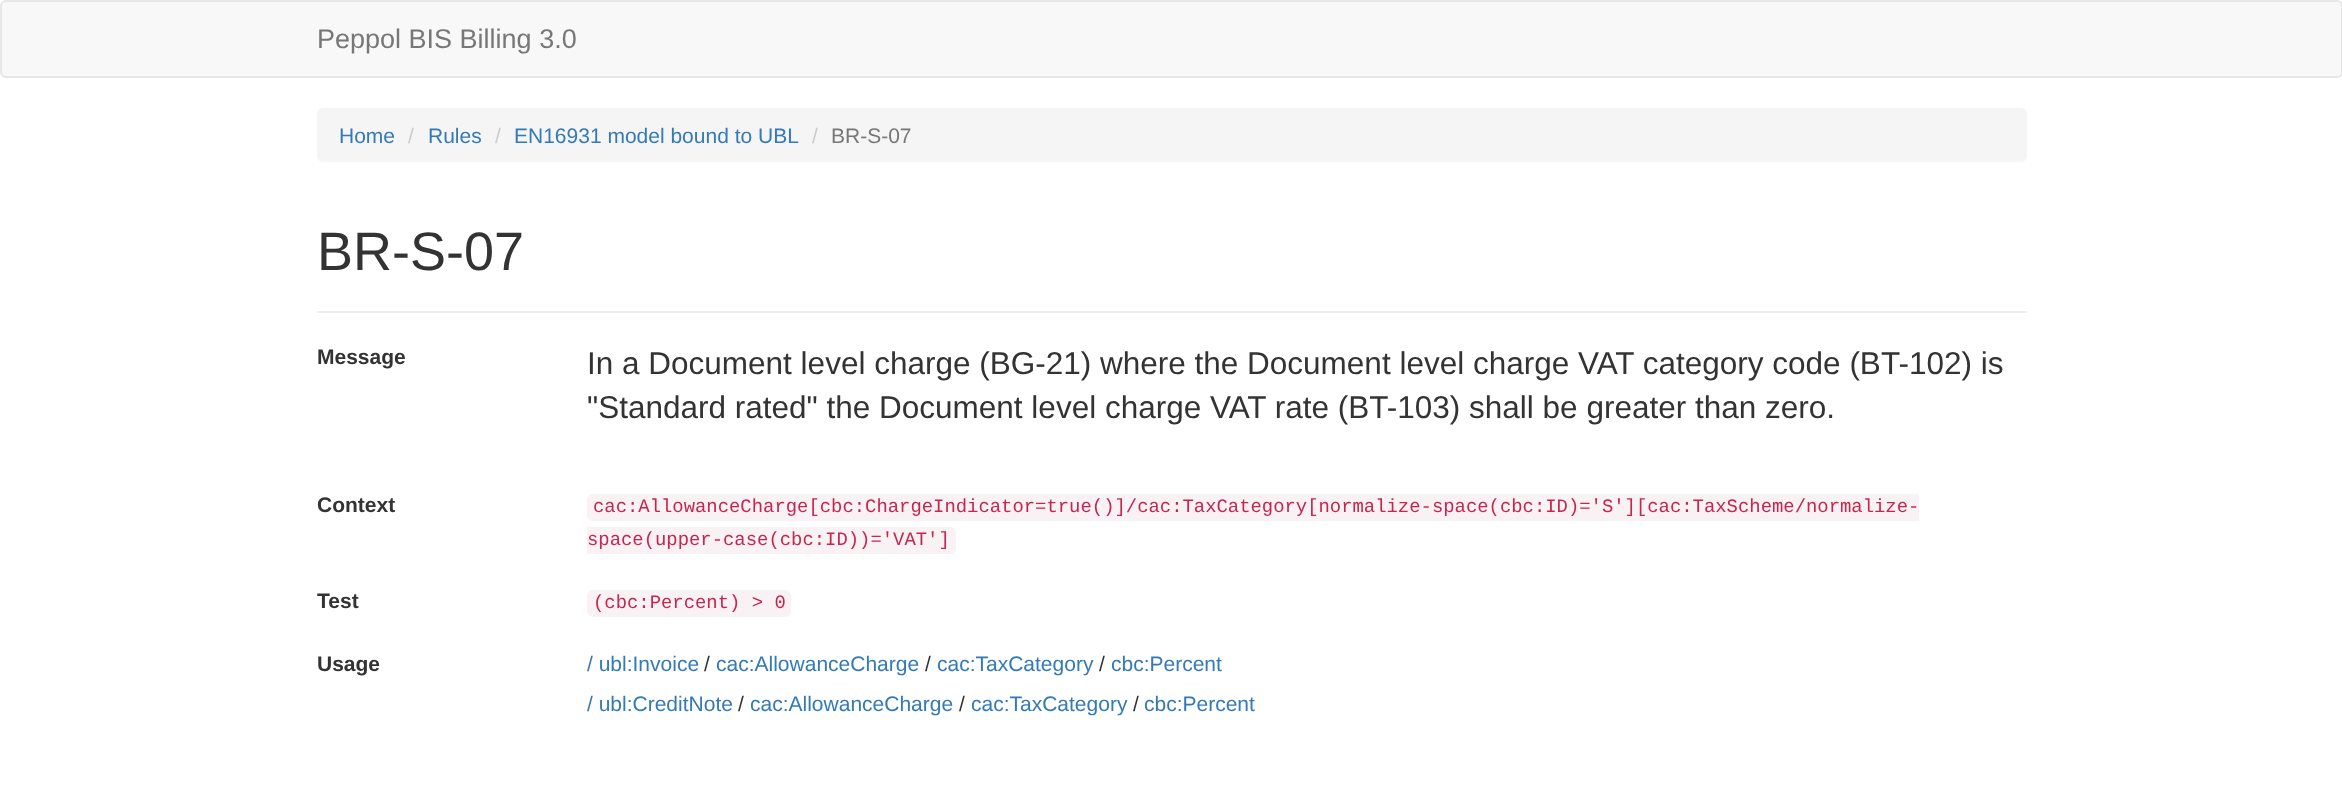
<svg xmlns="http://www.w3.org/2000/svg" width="2342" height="796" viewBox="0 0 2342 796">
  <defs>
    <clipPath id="clip1"><rect x="317" y="585" width="240" height="30"/></clipPath>
  </defs>
  <rect width="100%" height="100%" fill="rgb(255,255,255)"/>
  <rect x="1" y="1" width="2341" height="76" rx="5" fill="rgb(248,248,248)" stroke="rgb(231,231,231)" stroke-width="2"/>
  <text x="317" y="48" font-family="Liberation Sans" font-size="27" fill="rgb(119,119,119)">Peppol BIS Billing 3.0</text>
  <rect x="317" y="108" width="1710" height="54" rx="6" fill="rgb(245,245,245)"/>
  <text x="339" y="143" font-family="Liberation Sans" font-size="21" fill="rgb(51,122,183)">Home</text>
  <text x="408" y="143" font-family="Liberation Sans" font-size="21" fill="rgb(204,204,204)">/</text>
  <text x="428" y="143" font-family="Liberation Sans" font-size="21" fill="rgb(51,122,183)">Rules</text>
  <text x="495" y="143" font-family="Liberation Sans" font-size="21" fill="rgb(204,204,204)">/</text>
  <text x="514" y="143" font-family="Liberation Sans" font-size="21" fill="rgb(51,122,183)">EN16931 model bound to UBL</text>
  <text x="812" y="143" font-family="Liberation Sans" font-size="21" fill="rgb(204,204,204)">/</text>
  <text x="831" y="143" font-family="Liberation Sans" font-size="21" fill="rgb(119,119,119)">BR-S-07</text>
  <rect x="317" y="311" width="1710" height="2" fill="rgb(238,238,238)"/>
  <text x="317" y="270" font-family="Liberation Sans" font-size="54" fill="rgb(51,51,51)">BR-S-07</text>
  <text x="317" y="364" font-family="Liberation Sans" font-size="21" font-weight="bold" fill="rgb(51,51,51)">Message</text>
  <g font-family="Liberation Sans" font-size="31.5" fill="rgb(51,51,51)">
    <text>
      <tspan x="587" y="374">In a Document level charge (BG-21) where the Document level charge VAT category code (BT-102) is</tspan>
      <tspan x="587" y="418">"Standard rated" the Document level charge VAT rate (BT-103) shall be greater than zero.</tspan>
    </text>
  </g>
  <text x="317" y="512" font-family="Liberation Sans" font-size="21" font-weight="bold" fill="rgb(51,51,51)">Context</text>
  <path d="M593 494H1919V521H593C589.5 521 587 518.5 587 515V500C587 496.5 589.5 494 593 494Z" fill="rgb(249,242,244)"/>
  <text x="593" y="512" font-family="Liberation Mono" font-size="18.9" fill="rgb(199,37,78)">cac:AllowanceCharge[cbc:ChargeIndicator=true()]/cac:TaxCategory[normalize-space(cbc:ID)='S'][cac:TaxScheme/normalize-</text>
  <path d="M587 527H950C953.5 527 956 529.5 956 533V548C956 551.5 953.5 554 950 554H587Z" fill="rgb(249,242,244)"/>
  <text x="587" y="545" font-family="Liberation Mono" font-size="18.9" fill="rgb(199,37,78)">space(upper-case(cbc:ID))='VAT']</text>
  <g clip-path="url(#clip1)">
    <text x="317" y="608" font-family="Liberation Sans" font-size="21" font-weight="bold" fill="rgb(51,51,51)">Test</text>
  </g>
  <rect x="587" y="590" width="204" height="27" rx="6" fill="rgb(249,242,244)"/>
  <text x="593" y="608" font-family="Liberation Mono" font-size="18.9" fill="rgb(199,37,78)">(cbc:Percent) &gt; 0</text>
  <text x="317" y="671" font-family="Liberation Sans" font-size="21" font-weight="bold" fill="rgb(51,51,51)">Usage</text>
  <text x="587" y="671" font-family="Liberation Sans" font-size="21" fill="rgb(51,122,183)">/ ubl:Invoice</text>
  <text x="704" y="671" font-family="Liberation Sans" font-size="21" fill="rgb(51,51,51)">/</text>
  <text x="716" y="671" font-family="Liberation Sans" font-size="21" fill="rgb(51,122,183)">cac:AllowanceCharge</text>
  <text x="925" y="671" font-family="Liberation Sans" font-size="21" fill="rgb(51,51,51)">/</text>
  <text x="937" y="671" font-family="Liberation Sans" font-size="21" fill="rgb(51,122,183)">cac:TaxCategory</text>
  <text x="1099" y="671" font-family="Liberation Sans" font-size="21" fill="rgb(51,51,51)">/</text>
  <g font-family="Liberation Sans" font-size="21" fill="rgb(51,122,183)">
    <text x="1111" y="671">cbc:Percent</text>
    <text x="587" y="711">/ ubl:CreditNote</text>
  </g>
  <text x="738" y="711" font-family="Liberation Sans" font-size="21" fill="rgb(51,51,51)">/</text>
  <text x="750" y="711" font-family="Liberation Sans" font-size="21" fill="rgb(51,122,183)">cac:AllowanceCharge</text>
  <text x="959" y="711" font-family="Liberation Sans" font-size="21" fill="rgb(51,51,51)">/</text>
  <text x="971" y="711" font-family="Liberation Sans" font-size="21" fill="rgb(51,122,183)">cac:TaxCategory</text>
  <text x="1133" y="711" font-family="Liberation Sans" font-size="21" fill="rgb(51,51,51)">/</text>
  <text x="1144" y="711" font-family="Liberation Sans" font-size="21" fill="rgb(51,122,183)">cbc:Percent</text>
</svg>
